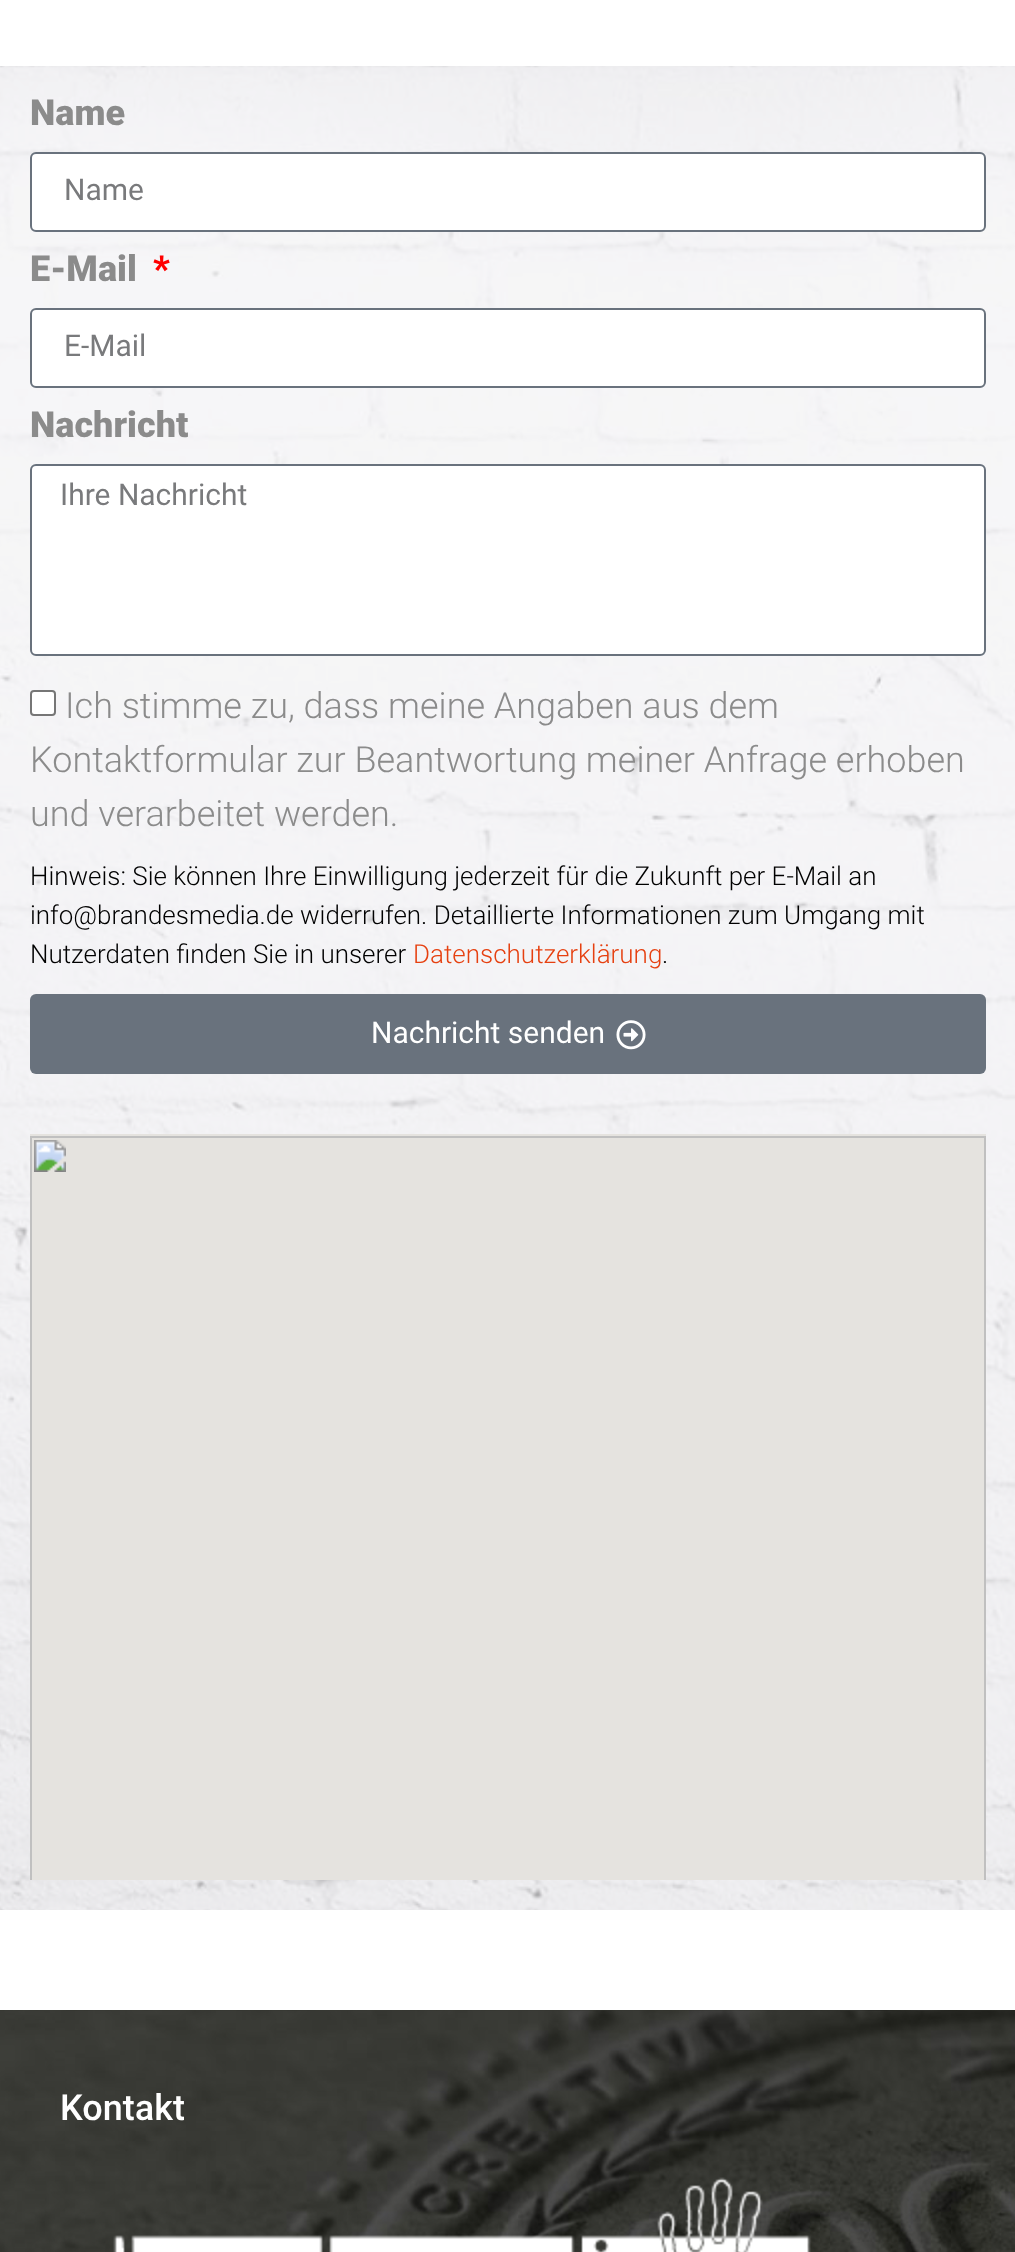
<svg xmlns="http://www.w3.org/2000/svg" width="1015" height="2252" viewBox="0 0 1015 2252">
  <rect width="100%" height="100%" fill="rgb(255,255,255)"/>
  <image x="0" y="66" width="1015" height="1844" href="pic1.png"/>
  <text x="30" y="125" font-family="Roboto" font-size="36" font-weight="900" fill="rgb(139,139,139)">Name</text>
  <rect x="31" y="153" width="954" height="78" rx="5" fill="rgb(255,255,255)" stroke="rgb(105,114,125)" stroke-width="2"/>
  <text x="64" y="200" font-family="Roboto" font-size="30" fill="rgb(121,122,124)">Name</text>
  <text x="30" y="281" font-family="Roboto" font-size="36" font-weight="900" fill="rgb(139,139,139)">E-Mail</text>
  <text x="153" y="281" font-family="Roboto" font-size="36" font-weight="900" fill="rgb(255,0,0)">*</text>
  <rect x="31" y="309" width="954" height="78" rx="5" fill="rgb(255,255,255)" stroke="rgb(105,114,125)" stroke-width="2"/>
  <text x="64" y="356" font-family="Roboto" font-size="30" fill="rgb(121,122,124)">E-Mail</text>
  <text x="30" y="437" font-family="Roboto" font-size="36" font-weight="900" fill="rgb(139,139,139)">Nachricht</text>
  <rect x="31" y="465" width="954" height="190" rx="5" fill="rgb(255,255,255)" stroke="rgb(105,114,125)" stroke-width="2"/>
  <text x="60" y="505" font-family="Roboto" font-size="30" fill="rgb(121,122,124)">Ihre Nachricht</text>
  <rect x="31" y="691" width="24" height="24" rx="3" fill="rgb(255,255,255)" stroke="rgb(118,118,118)" stroke-width="2"/>
  <g font-family="Roboto" font-size="36" font-weight="300" fill="rgb(139,139,139)">
    <text x="65" y="718">Ich stimme zu, dass meine Angaben aus dem</text>
    <text>
      <tspan x="30" y="772">Kontaktformular zur Beantwortung meiner Anfrage erhoben</tspan>
      <tspan x="30" y="826">und verarbeitet werden.</tspan>
    </text>
  </g>
  <g font-family="Roboto" font-size="26" font-weight="300" fill="rgb(0,0,0)">
    <text>
      <tspan x="30" y="885">Hinweis: Sie können Ihre Einwilligung jederzeit für die Zukunft per E-Mail an</tspan>
      <tspan x="30" y="924">info@brandesmedia.de widerrufen. Detaillierte Informationen zum Umgang mit</tspan>
      <tspan x="30" y="963">Nutzerdaten finden Sie in unserer</tspan>
    </text>
  </g>
  <text x="413" y="963" font-family="Roboto" font-size="26" font-weight="300" fill="rgb(230,64,16)">Datenschutzerklärung</text>
  <text x="662" y="963" font-family="Roboto" font-size="26" font-weight="300" fill="rgb(0,0,0)">.</text>
  <rect x="30" y="994" width="956" height="80" rx="6" fill="rgb(105,114,125)"/>
  <text x="371" y="1043" font-family="Roboto" font-size="30" fill="rgb(255,255,255)">Nachricht senden</text>
  <image x="616" y="1020" width="30" height="30" href="pic2.png"/>
  <image x="30" y="1134" width="956" height="746" href="pic3.png"/>
  <image x="0" y="2010" width="1015" height="242" href="pic4.png"/>
  <text x="60" y="2120" font-family="Roboto" font-size="36" font-weight="500" fill="rgb(255,255,255)">Kontakt</text>
  <image x="113" y="2177" width="698" height="75" href="pic5.png"/>
</svg>
